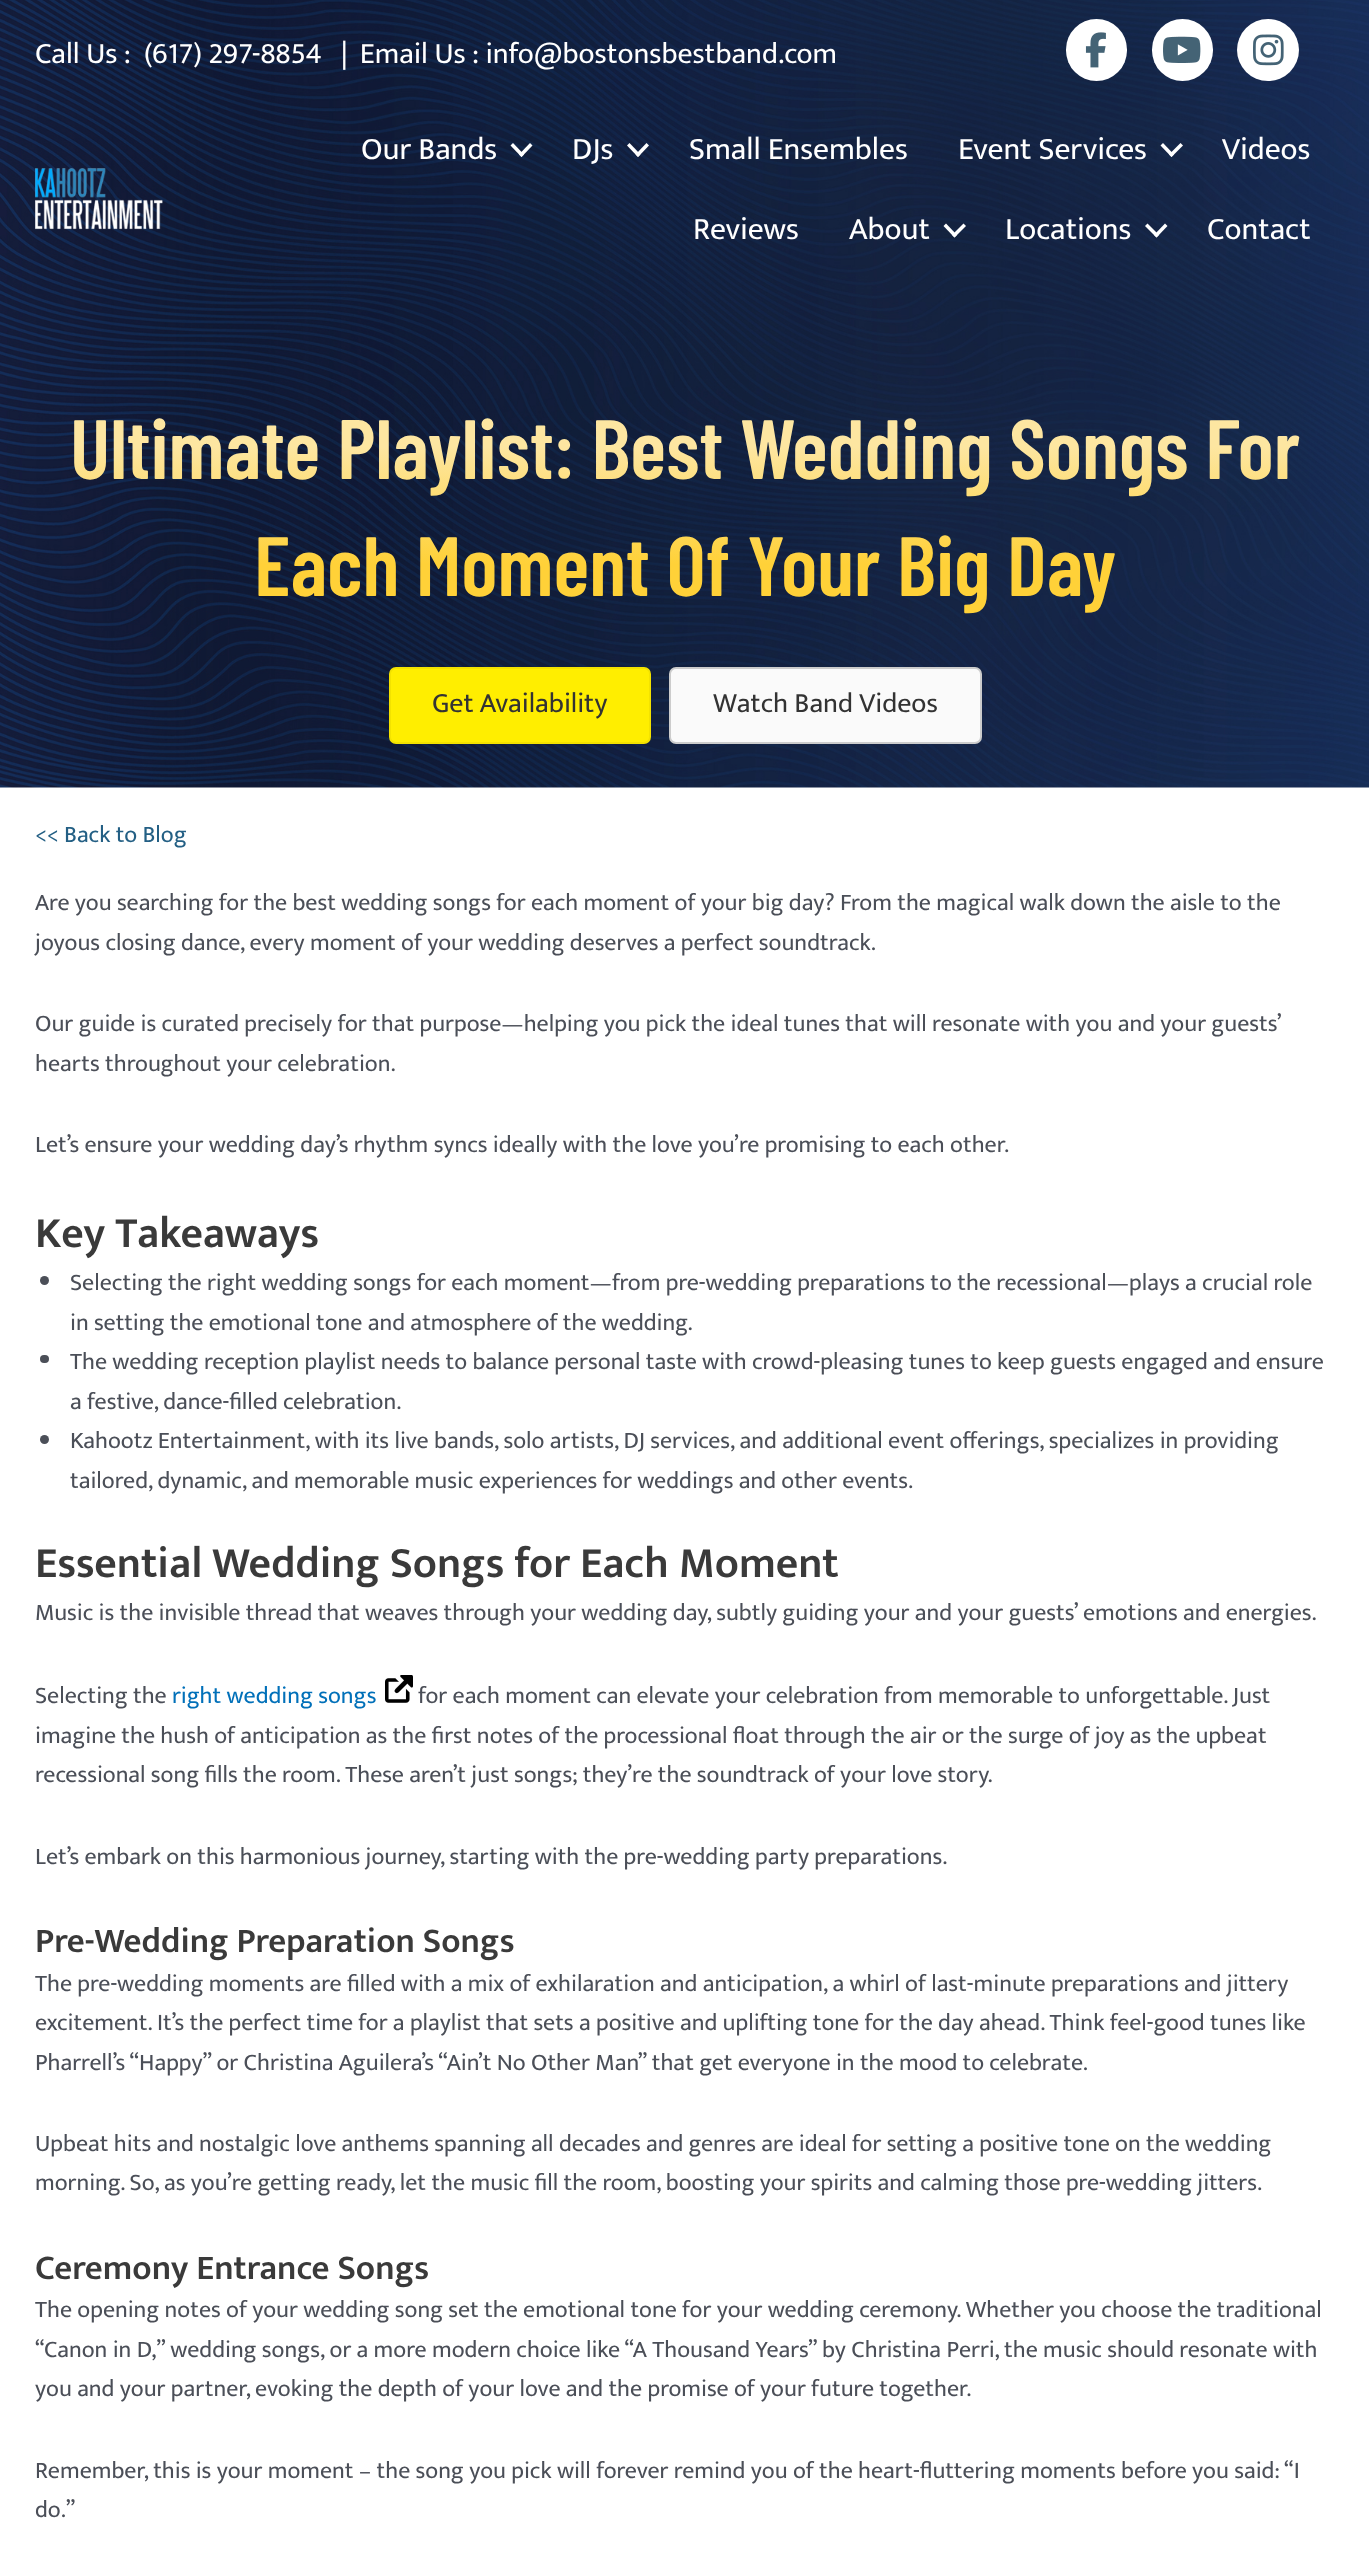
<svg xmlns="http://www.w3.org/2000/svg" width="1369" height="2559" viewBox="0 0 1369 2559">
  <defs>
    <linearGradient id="g1" gradientUnits="userSpaceOnUse" x1="685" y1="623" x2="685" y2="388"><stop offset="0.25" stop-color="rgb(255,209,56)"/><stop offset="0.75" stop-color="rgb(253,230,161)"/></linearGradient>
  </defs>
  <rect width="100%" height="100%" fill="rgb(255,255,255)"/>
  <image x="0" y="0" width="1369" height="788" href="pic5.png"/>
  <g font-family="Mukta" font-size="29.75" fill="rgb(255,255,255)">
    <text x="35" y="63">Call Us :</text>
    <text x="144" y="63">(617) 297-8854</text>
    <text x="341" y="63" xml:space="preserve">|  Email Us : info@bostonsbestband.com</text>
  </g>
  <rect x="1066" y="19" width="61" height="62" rx="30.5" fill="rgb(255,255,255)"/>
  <image x="1085" y="32" width="21" height="36" href="pic1.png"/>
  <rect x="1152" y="19" width="61" height="62" rx="30.5" fill="rgb(255,255,255)"/>
  <image x="1163" y="36" width="38" height="27" href="pic2.png"/>
  <circle cx="1268" cy="50" r="31" fill="rgb(255,255,255)"/>
  <image x="1253" y="34" width="31" height="32" href="pic3.png"/>
  <image x="35" y="168" width="128" height="62" href="pic4.png"/>
  <text x="361" y="159" font-family="Mukta" font-size="31.5" fill="rgb(255,255,255)">Our Bands</text>
  <path d="M530 143L532.5 145.5L521.5 157L519 154.5Z" fill="rgb(255,255,255)"/>
  <path d="M513 143L524 154.5L521.5 157L510.5 145.5Z" fill="rgb(255,255,255)"/>
  <text x="572" y="159" font-family="Mukta" font-size="31.5" fill="rgb(255,255,255)">DJs</text>
  <path d="M646.5 143L649 145.5L638 157L635.5 154.5Z" fill="rgb(255,255,255)"/>
  <path d="M629.5 143L640.5 154.5L638 157L627 145.5Z" fill="rgb(255,255,255)"/>
  <g font-family="Mukta" font-size="31.5" fill="rgb(255,255,255)">
    <text x="689" y="159">Small Ensembles</text>
    <text x="958" y="159">Event Services</text>
  </g>
  <path d="M1180.5 143L1183 145.5L1171.5 157L1169 154.5Z" fill="rgb(255,255,255)"/>
  <path d="M1163 143L1174 154.5L1171.5 157L1160.5 145.5Z" fill="rgb(255,255,255)"/>
  <g font-family="Mukta" font-size="31.5" fill="rgb(255,255,255)">
    <text x="1222" y="159">Videos</text>
    <text x="693" y="239">Reviews</text>
    <text x="849" y="239">About</text>
  </g>
  <path d="M963.5 223.5L966 226L954.5 237.5L952 235Z" fill="rgb(255,255,255)"/>
  <path d="M946 223.5L957 235L954.5 237.5L943.5 226Z" fill="rgb(255,255,255)"/>
  <text x="1005" y="239" font-family="Mukta" font-size="31.5" fill="rgb(255,255,255)">Locations</text>
  <path d="M1165 223.5L1167.5 226L1156.5 237.5L1154 235Z" fill="rgb(255,255,255)"/>
  <path d="M1147.5 223.5L1159 235L1156.5 237.5L1145 226Z" fill="rgb(255,255,255)"/>
  <text x="1207" y="239" font-family="Mukta" font-size="31.5" fill="rgb(255,255,255)">Contact</text>
  <g font-family="Barlow Condensed" font-size="84" font-weight="600" fill="url(#g1)">
    <text x="70" y="479">Ultimate Playlist: Best Wedding Songs For</text>
    <text x="254" y="596">Each Moment Of Your Big Day</text>
  </g>
  <rect x="390" y="668" width="260" height="75" rx="6" fill="rgb(255,238,0)" stroke="rgb(243,226,0)" stroke-width="2"/>
  <text x="432" y="712" font-family="Mukta" font-size="28" fill="rgb(51,51,51)">Get Availability</text>
  <rect x="670" y="668" width="311" height="75" rx="6" fill="rgb(250,250,250)" stroke="rgb(204,204,204)" stroke-width="2"/>
  <text x="713" y="712" font-family="Mukta" font-size="28" fill="rgb(51,51,51)">Watch Band Videos</text>
  <text x="35" y="842" font-family="Mukta" font-size="23.95" fill="rgb(35,95,132)">&lt;&lt; Back to Blog</text>
  <g font-family="Mukta" font-size="23.95" fill="rgb(75,79,88)">
    <text>
      <tspan x="35" y="910">Are you searching for the best wedding songs for each moment of your big day? From the magical walk down the aisle to the</tspan>
      <tspan x="35" y="950">joyous closing dance, every moment of your wedding deserves a perfect soundtrack.</tspan>
    </text>
    <text>
      <tspan x="35" y="1031">Our guide is curated precisely for that purpose—helping you pick the ideal tunes that will resonate with you and your guests’</tspan>
      <tspan x="35" y="1071">hearts throughout your celebration.</tspan>
    </text>
    <text x="35" y="1152">Let’s ensure your wedding day’s rhythm syncs ideally with the love you’re promising to each other.</text>
  </g>
  <text x="35" y="1247" font-family="Mukta" font-size="43.75" font-weight="600" fill="rgb(58,58,58)">Key Takeaways</text>
  <circle cx="44.5" cy="1280.5" r="4.5" fill="rgb(75,79,88)"/>
  <g font-family="Mukta" font-size="23.95" fill="rgb(75,79,88)">
    <text>
      <tspan x="70" y="1290">Selecting the right wedding songs for each moment—from pre-wedding preparations to the recessional—plays a crucial role</tspan>
      <tspan x="70" y="1330">in setting the emotional tone and atmosphere of the wedding.</tspan>
    </text>
  </g>
  <rect x="40" y="1355" width="9" height="8" rx="4" fill="rgb(75,79,88)"/>
  <g font-family="Mukta" font-size="23.95" fill="rgb(75,79,88)">
    <text>
      <tspan x="70" y="1369">The wedding reception playlist needs to balance personal taste with crowd-pleasing tunes to keep guests engaged and ensure</tspan>
      <tspan x="70" y="1409">a festive, dance-filled celebration.</tspan>
    </text>
  </g>
  <circle cx="44.5" cy="1439.5" r="4.5" fill="rgb(75,79,88)"/>
  <g font-family="Mukta" font-size="23.95" fill="rgb(75,79,88)">
    <text>
      <tspan x="70" y="1448">Kahootz Entertainment, with its live bands, solo artists, DJ services, and additional event offerings, specializes in providing</tspan>
      <tspan x="70" y="1488">tailored, dynamic, and memorable music experiences for weddings and other events.</tspan>
    </text>
  </g>
  <text x="35" y="1577" font-family="Mukta" font-size="43.75" font-weight="600" fill="rgb(58,58,58)">Essential Wedding Songs for Each Moment</text>
  <g font-family="Mukta" font-size="23.95" fill="rgb(75,79,88)">
    <text x="35" y="1620">Music is the invisible thread that weaves through your wedding day, subtly guiding your and your guests’ emotions and energies.</text>
    <text x="35" y="1703">Selecting the</text>
  </g>
  <text x="172" y="1703" font-family="Mukta" font-size="23.95" fill="rgb(1,112,185)">right wedding songs</text>
  <image x="385" y="1675" width="28" height="28" href="pic6.png"/>
  <g font-family="Mukta" font-size="23.95" fill="rgb(75,79,88)">
    <text x="418" y="1703">for each moment can elevate your celebration from memorable to unforgettable. Just</text>
    <text>
      <tspan x="35" y="1743">imagine the hush of anticipation as the first notes of the processional float through the air or the surge of joy as the upbeat</tspan>
      <tspan x="35" y="1782">recessional song fills the room. These aren’t just songs; they’re the soundtrack of your love story.</tspan>
    </text>
    <text x="35" y="1864">Let’s embark on this harmonious journey, starting with the pre-wedding party preparations.</text>
  </g>
  <text x="35" y="1952" font-family="Mukta" font-size="35" font-weight="600" fill="rgb(58,58,58)">Pre-Wedding Preparation Songs</text>
  <g font-family="Mukta" font-size="23.95" fill="rgb(75,79,88)">
    <text>
      <tspan x="35" y="1991">The pre-wedding moments are filled with a mix of exhilaration and anticipation, a whirl of last-minute preparations and jittery</tspan>
      <tspan x="35" y="2030">excitement. It’s the perfect time for a playlist that sets a positive and uplifting tone for the day ahead. Think feel-good tunes like</tspan>
      <tspan x="35" y="2070">Pharrell’s “Happy” or Christina Aguilera’s “Ain’t No Other Man” that get everyone in the mood to celebrate.</tspan>
    </text>
    <text>
      <tspan x="35" y="2151">Upbeat hits and nostalgic love anthems spanning all decades and genres are ideal for setting a positive tone on the wedding</tspan>
      <tspan x="35" y="2190">morning. So, as you’re getting ready, let the music fill the room, boosting your spirits and calming those pre-wedding jitters.</tspan>
    </text>
  </g>
  <text x="35" y="2279" font-family="Mukta" font-size="35" font-weight="600" fill="rgb(58,58,58)">Ceremony Entrance Songs</text>
  <g font-family="Mukta" font-size="23.95" fill="rgb(75,79,88)">
    <text>
      <tspan x="35" y="2317">The opening notes of your wedding song set the emotional tone for your wedding ceremony. Whether you choose the traditional</tspan>
      <tspan x="35" y="2357">“Canon in D,” wedding songs, or a more modern choice like “A Thousand Years” by Christina Perri, the music should resonate with</tspan>
      <tspan x="35" y="2396">you and your partner, evoking the depth of your love and the promise of your future together.</tspan>
    </text>
    <text>
      <tspan x="35" y="2478">Remember, this is your moment – the song you pick will forever remind you of the heart-fluttering moments before you said: “I</tspan>
      <tspan x="35" y="2517">do.”</tspan>
    </text>
  </g>
</svg>
